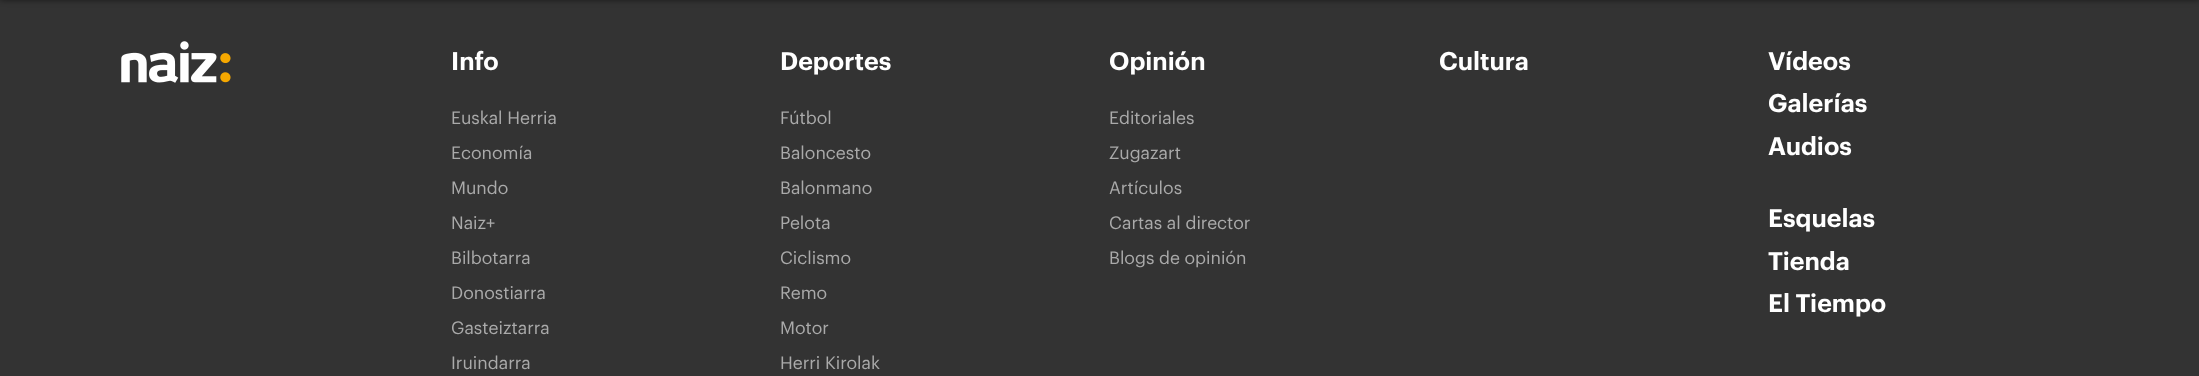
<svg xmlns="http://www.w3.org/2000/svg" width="2199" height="376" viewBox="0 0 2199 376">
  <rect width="100%" height="100%" fill="rgb(51,51,51)"/>
  <rect x="0" y="-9" width="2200" height="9" fill="rgba(0,0,0,0.5)" filter="blur(3px)"/>
  <image x="121" y="41" width="110" height="42" href="pic1.png"/>
  <text x="451" y="70" font-family="Graphik" font-size="25" font-weight="600" fill="rgb(255,255,255)">Info</text>
  <g font-family="Graphik" font-size="17.5" fill="rgb(170,170,170)">
    <text x="451" y="124">Euskal Herria</text>
    <text x="451" y="159">Economía</text>
    <text x="451" y="194">Mundo</text>
    <text x="451" y="229">Naiz+</text>
    <text x="451" y="264">Bilbotarra</text>
    <text x="451" y="299">Donostiarra</text>
    <text x="451" y="334">Gasteiztarra</text>
    <text x="451" y="369">Iruindarra</text>
  </g>
  <text x="780" y="70" font-family="Graphik" font-size="25" font-weight="600" fill="rgb(255,255,255)">Deportes</text>
  <g font-family="Graphik" font-size="17.5" fill="rgb(170,170,170)">
    <text x="780" y="124">Fútbol</text>
    <text x="780" y="159">Baloncesto</text>
    <text x="780" y="194">Balonmano</text>
    <text x="780" y="229">Pelota</text>
    <text x="780" y="264">Ciclismo</text>
    <text x="780" y="299">Remo</text>
    <text x="780" y="334">Motor</text>
    <text x="780" y="369">Herri Kirolak</text>
  </g>
  <text x="1109" y="70" font-family="Graphik" font-size="25" font-weight="600" fill="rgb(255,255,255)">Opinión</text>
  <g font-family="Graphik" font-size="17.5" fill="rgb(170,170,170)">
    <text x="1109" y="124">Editoriales</text>
    <text x="1109" y="159">Zugazart</text>
    <text x="1109" y="194">Artículos</text>
    <text x="1109" y="229">Cartas al director</text>
    <text x="1109" y="264">Blogs de opinión</text>
  </g>
  <g font-family="Graphik" font-size="25" font-weight="600" fill="rgb(255,255,255)">
    <text x="1439" y="70">Cultura</text>
    <text>
      <tspan x="1768" y="70">Vídeos</tspan>
      <tspan x="1768" y="112">Galerías</tspan>
      <tspan x="1768" y="155">Audios</tspan>
    </text>
    <text>
      <tspan x="1768" y="227">Esquelas</tspan>
      <tspan x="1768" y="270">Tienda</tspan>
      <tspan x="1768" y="312">El Tiempo</tspan>
    </text>
  </g>
</svg>
